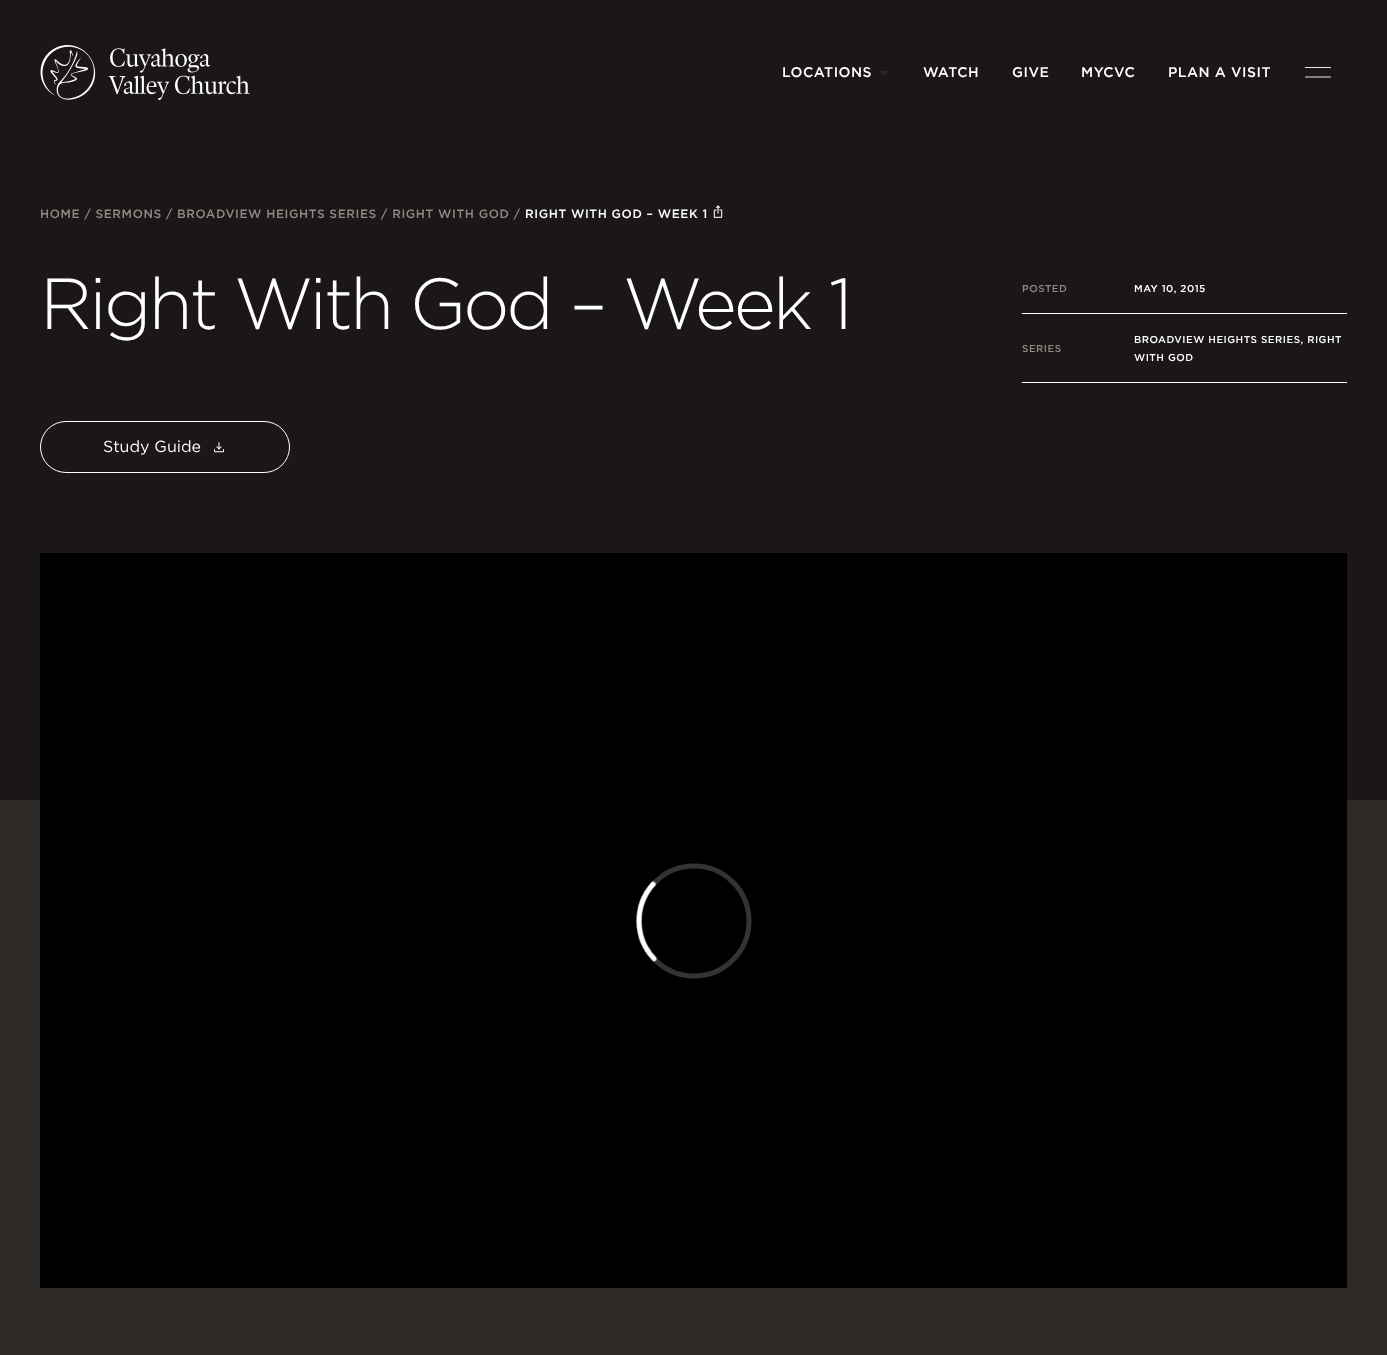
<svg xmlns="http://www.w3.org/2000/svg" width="1387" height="1355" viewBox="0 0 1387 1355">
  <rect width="100%" height="100%" fill="rgb(26,23,22)"/>
  <rect x="0" y="800" width="1387" height="555" fill="rgb(45,41,38)"/>
  <image x="40" y="45" width="210" height="55" href="pic1.png"/>
  <text x="782" y="77" font-family="Gotham" font-size="14" font-weight="500" letter-spacing="0.5" fill="rgb(255,255,255)">LOCATIONS</text>
  <image x="880" y="71" width="9" height="5" href="pic2.png"/>
  <g font-family="Gotham" font-size="14" font-weight="500" letter-spacing="0.5" fill="rgb(255,255,255)">
    <text x="923" y="77">WATCH</text>
    <text x="1012" y="77">GIVE</text>
    <text x="1081" y="77">MYCVC</text>
    <text x="1168" y="77">PLAN A VISIT</text>
  </g>
  <rect x="1305" y="67" width="26" height="1" fill="rgb(232,232,232)"/>
  <path d="M1305 77H1331" fill="none" stroke="rgb(255,255,255)" stroke-width="0.9"/>
  <text x="40" y="218" font-family="Gotham" font-size="12" font-weight="500" letter-spacing="0.6" fill="rgb(141,138,135)">HOME / SERMONS / BROADVIEW HEIGHTS SERIES / RIGHT WITH GOD /</text>
  <text x="525" y="218" font-family="Gotham" font-size="12" font-weight="500" letter-spacing="0.6" fill="rgb(255,255,255)">RIGHT WITH GOD – WEEK 1</text>
  <image x="713" y="205" width="10" height="13" href="pic3.png"/>
  <text x="40" y="329" font-family="Gotham" font-size="72" font-weight="300" letter-spacing="-3" fill="rgb(255,255,255)">Right With God – Week 1</text>
  <rect x="40.5" y="421.5" width="249" height="51" rx="25.5" fill="none" stroke="rgb(255,255,255)"/>
  <text x="103" y="452" font-family="Gotham" font-size="16" fill="rgb(255,255,255)">Study Guide</text>
  <image x="214" y="442" width="10" height="11" href="pic4.png"/>
  <rect x="1022" y="313" width="325" height="1" fill="rgb(255,255,255)"/>
  <text x="1022" y="292" font-family="Gotham" font-size="10" font-weight="500" letter-spacing="0.5" fill="rgb(141,138,135)">POSTED</text>
  <text x="1134" y="292" font-family="Gotham" font-size="10" font-weight="500" letter-spacing="0.5" fill="rgb(255,255,255)">MAY 10, 2015</text>
  <rect x="1022" y="382" width="325" height="1" fill="rgb(255,255,255)"/>
  <text x="1022" y="352" font-family="Gotham" font-size="10" font-weight="500" letter-spacing="0.5" fill="rgb(141,138,135)">SERIES</text>
  <g font-family="Gotham" font-size="10" font-weight="500" letter-spacing="0.5" fill="rgb(255,255,255)">
    <text>
      <tspan x="1134" y="343">BROADVIEW HEIGHTS SERIES, RIGHT</tspan>
      <tspan x="1134" y="361">WITH GOD</tspan>
    </text>
  </g>
  <rect x="40" y="553" width="1307" height="735" fill="rgb(0,0,0)"/>
  <image x="635" y="863" width="117" height="116" href="pic5.png"/>
</svg>
